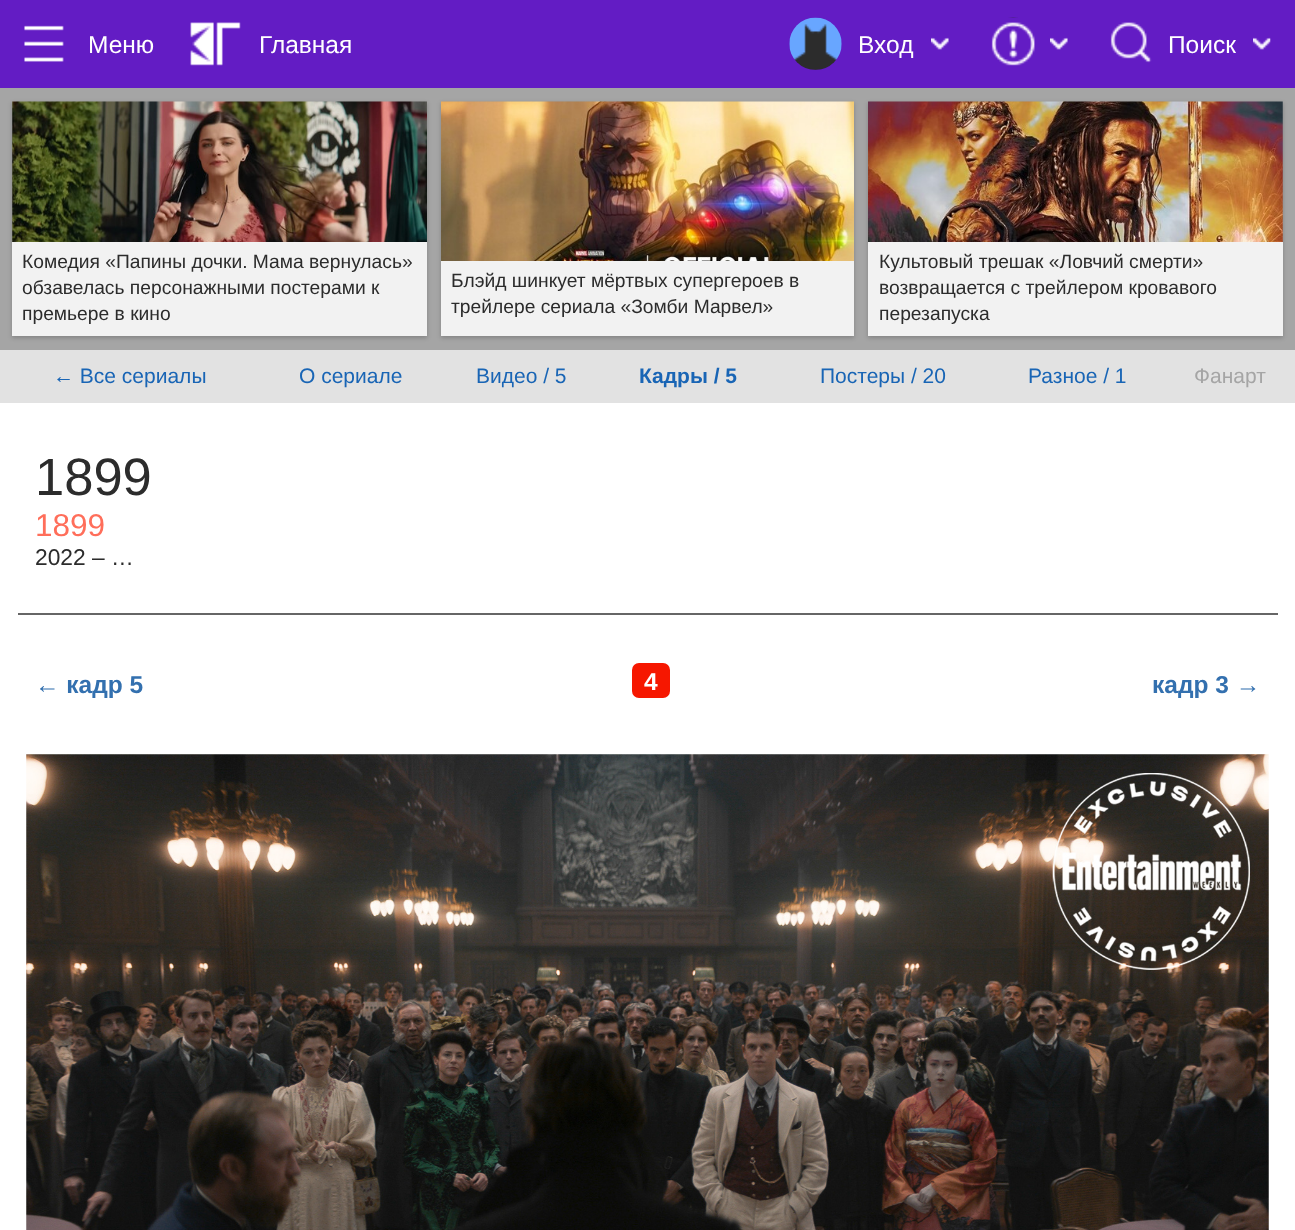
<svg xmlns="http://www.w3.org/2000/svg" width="1295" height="1230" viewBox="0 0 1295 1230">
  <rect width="100%" height="100%" fill="rgb(255,255,255)"/>
  <rect x="0" y="0" width="1295" height="88" fill="rgb(99,28,196)"/>
  <image x="24" y="25" width="40" height="37" href="pic1.png"/>
  <text x="88" y="53" font-family="Liberation Sans" font-size="24.5" fill="rgb(255,255,255)">Меню</text>
  <image x="190" y="22" width="51" height="44" href="pic2.png"/>
  <text x="259" y="53" font-family="Liberation Sans" font-size="24.5" fill="rgb(255,255,255)">Главная</text>
  <image x="789" y="17" width="53" height="53" href="pic3.png"/>
  <text x="858" y="53" font-family="Liberation Sans" font-size="24.5" fill="rgb(255,255,255)">Вход</text>
  <image x="931" y="37" width="18" height="13" href="pic4.png"/>
  <image x="991" y="17" width="44" height="49" href="pic5.png"/>
  <image x="1050" y="37" width="18" height="13" href="pic6.png"/>
  <image x="1110" y="22" width="42" height="41" href="pic7.png"/>
  <text x="1168" y="53" font-family="Liberation Sans" font-size="24.5" fill="rgb(255,255,255)">Поиск</text>
  <image x="1253" y="37" width="18" height="13" href="pic8.png"/>
  <rect x="0" y="88" width="1295" height="262" fill="rgb(165,165,165)"/>
  <rect x="12" y="103" width="415" height="235" fill="rgba(0,0,0,0.2)" filter="blur(2px)"/>
  <image x="12" y="101" width="415" height="141" href="pic9.png"/>
  <rect x="12" y="242" width="415" height="94" fill="rgb(242,242,242)"/>
  <g font-family="Liberation Sans" font-size="19.25" fill="rgb(44,44,44)">
    <text>
      <tspan x="22" y="268">Комедия «Папины дочки. Мама вернулась»</tspan>
      <tspan x="22" y="294">обзавелась персонажными постерами к</tspan>
      <tspan x="22" y="320">премьере в кино</tspan>
    </text>
  </g>
  <rect x="441" y="103" width="413" height="235" fill="rgba(0,0,0,0.2)" filter="blur(2px)"/>
  <image x="441" y="101" width="413" height="160" href="pic10.png"/>
  <rect x="441" y="261" width="413" height="75" fill="rgb(242,242,242)"/>
  <g font-family="Liberation Sans" font-size="19.25" fill="rgb(44,44,44)">
    <text>
      <tspan x="451" y="287">Блэйд шинкует мёртвых супергероев в</tspan>
      <tspan x="451" y="313">трейлере сериала «Зомби Марвел»</tspan>
    </text>
  </g>
  <rect x="868" y="103" width="415" height="235" fill="rgba(0,0,0,0.2)" filter="blur(2px)"/>
  <image x="868" y="101" width="415" height="141" href="pic11.png"/>
  <rect x="868" y="242" width="415" height="94" fill="rgb(242,242,242)"/>
  <g font-family="Liberation Sans" font-size="19.25" fill="rgb(44,44,44)">
    <text>
      <tspan x="879" y="268">Культовый трешак «Ловчий смерти»</tspan>
      <tspan x="879" y="294">возвращается с трейлером кровавого</tspan>
      <tspan x="879" y="320">перезапуска</tspan>
    </text>
  </g>
  <rect x="0" y="350" width="1295" height="53" fill="rgb(226,226,226)"/>
  <g font-family="Liberation Sans" font-size="21" fill="rgb(25,101,181)">
    <text x="53" y="383">← Все сериалы</text>
    <text x="299" y="383">О сериале</text>
    <text x="476" y="383">Видео / 5</text>
  </g>
  <text x="639" y="383" font-family="Liberation Sans" font-size="21" font-weight="bold" fill="rgb(25,101,181)">Кадры / 5</text>
  <g font-family="Liberation Sans" font-size="21" fill="rgb(25,101,181)">
    <text x="820" y="383">Постеры / 20</text>
    <text x="1028" y="383">Разное / 1</text>
  </g>
  <text x="1194" y="383" font-family="Liberation Sans" font-size="21" fill="rgb(165,165,165)">Фанарт</text>
  <rect x="18" y="613" width="1260" height="2" fill="rgb(102,102,102)"/>
  <text x="35" y="495" font-family="Liberation Sans" font-size="52.5" fill="rgb(44,44,44)">1899</text>
  <text x="35" y="536" font-family="Liberation Sans" font-size="31.5" fill="rgb(255,110,90)">1899</text>
  <text x="35" y="565" font-family="Liberation Sans" font-size="22.75" fill="rgb(44,44,44)">2022 – …</text>
  <text x="35" y="693" font-family="Liberation Sans" font-size="24.5" font-weight="bold" fill="rgb(51,112,175)">← кадр 5</text>
  <rect x="632" y="663" width="38" height="35" rx="7" fill="rgb(246,23,0)"/>
  <text x="644" y="690" font-family="Liberation Sans" font-size="24.5" font-weight="bold" fill="rgb(255,255,255)">4</text>
  <text x="1152" y="693" font-family="Liberation Sans" font-size="24.5" font-weight="bold" fill="rgb(51,112,175)">кадр 3 →</text>
  <image x="26" y="754" width="1243" height="476" href="pic12.png"/>
</svg>
